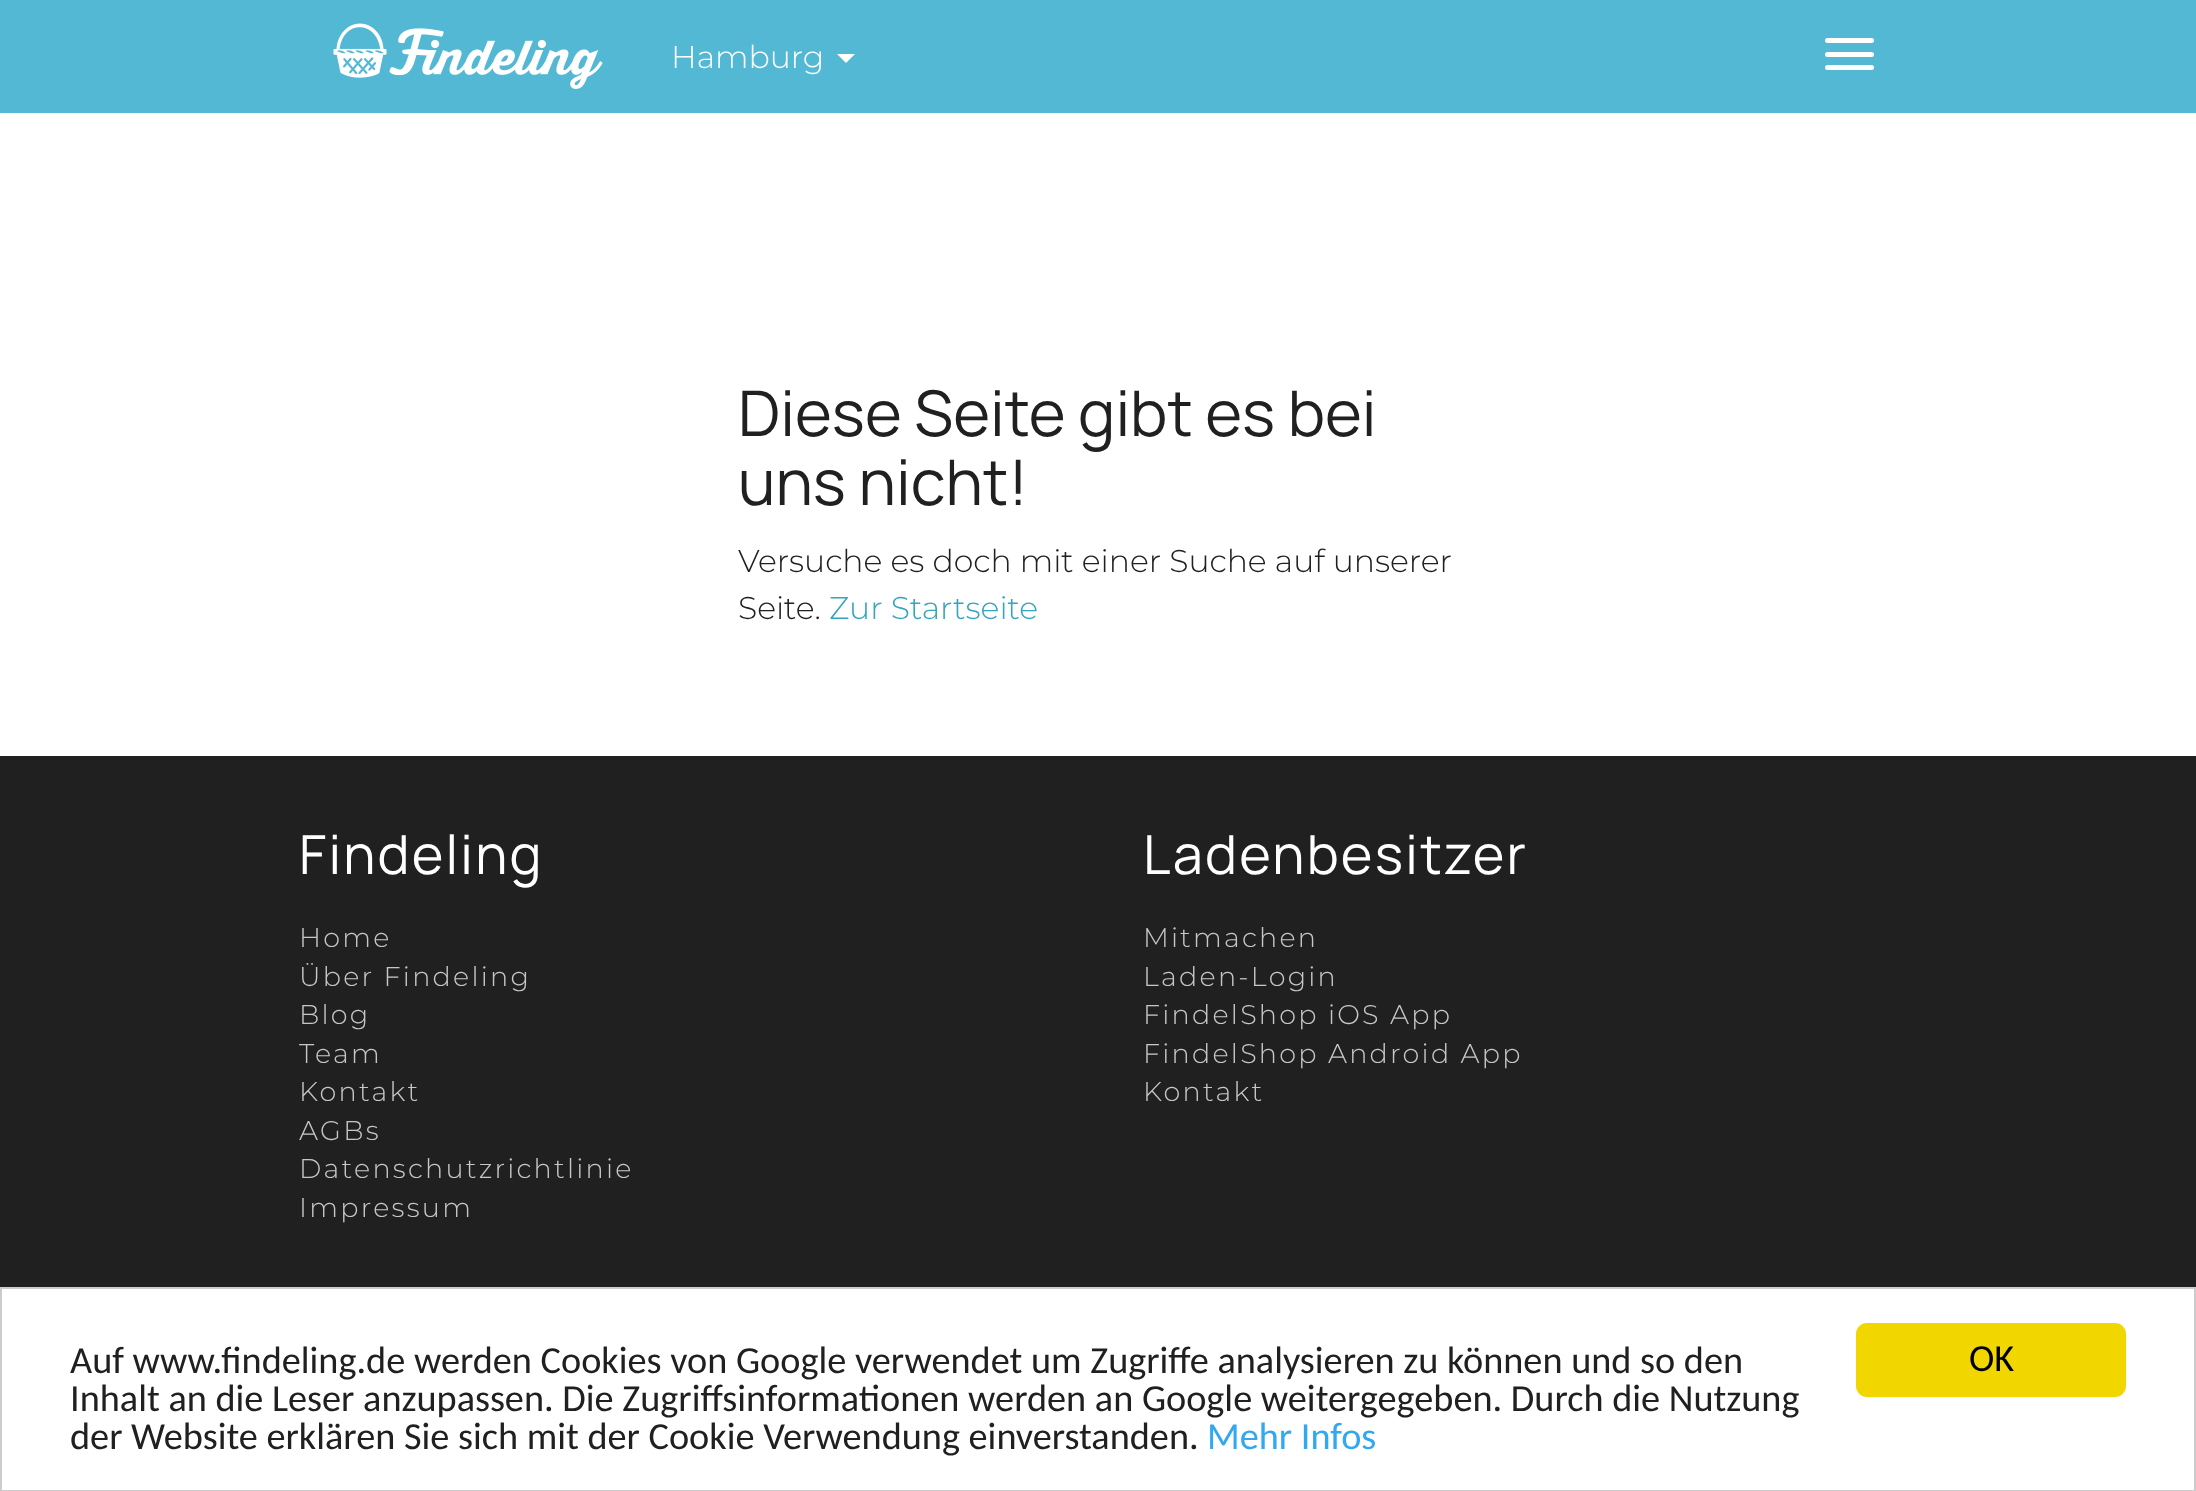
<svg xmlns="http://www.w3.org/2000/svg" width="2196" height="1491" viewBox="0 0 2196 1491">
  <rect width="100%" height="100%" fill="rgb(255,255,255)"/>
  <rect x="0" y="0" width="2196" height="113" fill="rgb(82,184,211)"/>
  <image x="333" y="23" width="270" height="66" href="pic1.png"/>
  <text x="671" y="68" font-family="Montserrat" font-size="31.5" font-weight="300" fill="rgb(255,255,255)">Hamburg</text>
  <path d="M837 54H855L846 63Z" fill="rgb(255,255,255)"/>
  <rect x="1825" y="38" width="49" height="5" rx="2.5" fill="rgb(255,255,255)"/>
  <rect x="1825" y="52" width="49" height="5" rx="2.5" fill="rgb(255,255,255)"/>
  <rect x="1825" y="65" width="49" height="5" rx="2.5" fill="rgb(255,255,255)"/>
  <g font-family="Manrope" font-size="63" font-weight="200" fill="rgb(32,32,32)">
    <text>
      <tspan x="738" y="436">Diese Seite gibt es bei</tspan>
      <tspan x="738" y="505">uns nicht!</tspan>
    </text>
  </g>
  <g font-family="Montserrat" font-size="31.5" font-weight="300" fill="rgb(32,32,32)">
    <text>
      <tspan x="738" y="572">Versuche es doch mit einer Suche auf unserer</tspan>
      <tspan x="738" y="619">Seite.</tspan>
    </text>
  </g>
  <text x="829" y="619" font-family="Montserrat" font-size="31.5" font-weight="300" fill="rgb(52,164,191)">Zur Startseite</text>
  <rect x="0" y="756" width="2196" height="531" fill="rgb(32,32,32)"/>
  <text x="299" y="874" font-family="Manrope" font-size="54" font-weight="200" letter-spacing="2.25" fill="rgb(255,255,255)">Findeling</text>
  <g font-family="Montserrat" font-size="27" font-weight="300" letter-spacing="2.25" fill="rgb(199,199,199)">
    <text>
      <tspan x="299" y="947">Home</tspan>
      <tspan x="299" y="986">Über Findeling</tspan>
      <tspan x="299" y="1024">Blog</tspan>
      <tspan x="299" y="1063">Team</tspan>
      <tspan x="299" y="1101">Kontakt</tspan>
      <tspan x="299" y="1140">AGBs</tspan>
      <tspan x="299" y="1178">Datenschutzrichtlinie</tspan>
      <tspan x="299" y="1217">Impressum</tspan>
    </text>
  </g>
  <text x="1143" y="874" font-family="Manrope" font-size="54" font-weight="200" letter-spacing="2.25" fill="rgb(255,255,255)">Ladenbesitzer</text>
  <g font-family="Montserrat" font-size="27" font-weight="300" letter-spacing="2.25" fill="rgb(199,199,199)">
    <text>
      <tspan x="1143" y="947">Mitmachen</tspan>
      <tspan x="1143" y="986">Laden-Login</tspan>
      <tspan x="1143" y="1024">FindelShop iOS App</tspan>
      <tspan x="1143" y="1063">FindelShop Android App</tspan>
      <tspan x="1143" y="1101">Kontakt</tspan>
    </text>
  </g>
  <rect x="1" y="1288" width="2194" height="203" fill="none" stroke="rgb(204,204,204)" stroke-width="2"/>
  <g font-family="Carlito" font-size="38.25" fill="rgb(32,32,32)">
    <text>
      <tspan x="70" y="1373">Auf www.findeling.de werden Cookies von Google verwendet um Zugriffe analysieren zu können und so den</tspan>
      <tspan x="70" y="1411">Inhalt an die Leser anzupassen. Die Zugriffsinformationen werden an Google weitergegeben. Durch die Nutzung</tspan>
      <tspan x="70" y="1449">der Website erklären Sie sich mit der Cookie Verwendung einverstanden.</tspan>
    </text>
  </g>
  <text x="1207" y="1449" font-family="Carlito" font-size="38.25" fill="rgb(49,168,240)">Mehr Infos</text>
  <rect x="1856" y="1323" width="270" height="74" rx="11" fill="rgb(241,214,0)"/>
  <text x="1969" y="1371" font-family="Carlito" font-size="38.25" fill="rgb(0,0,0)">OK</text>
</svg>
